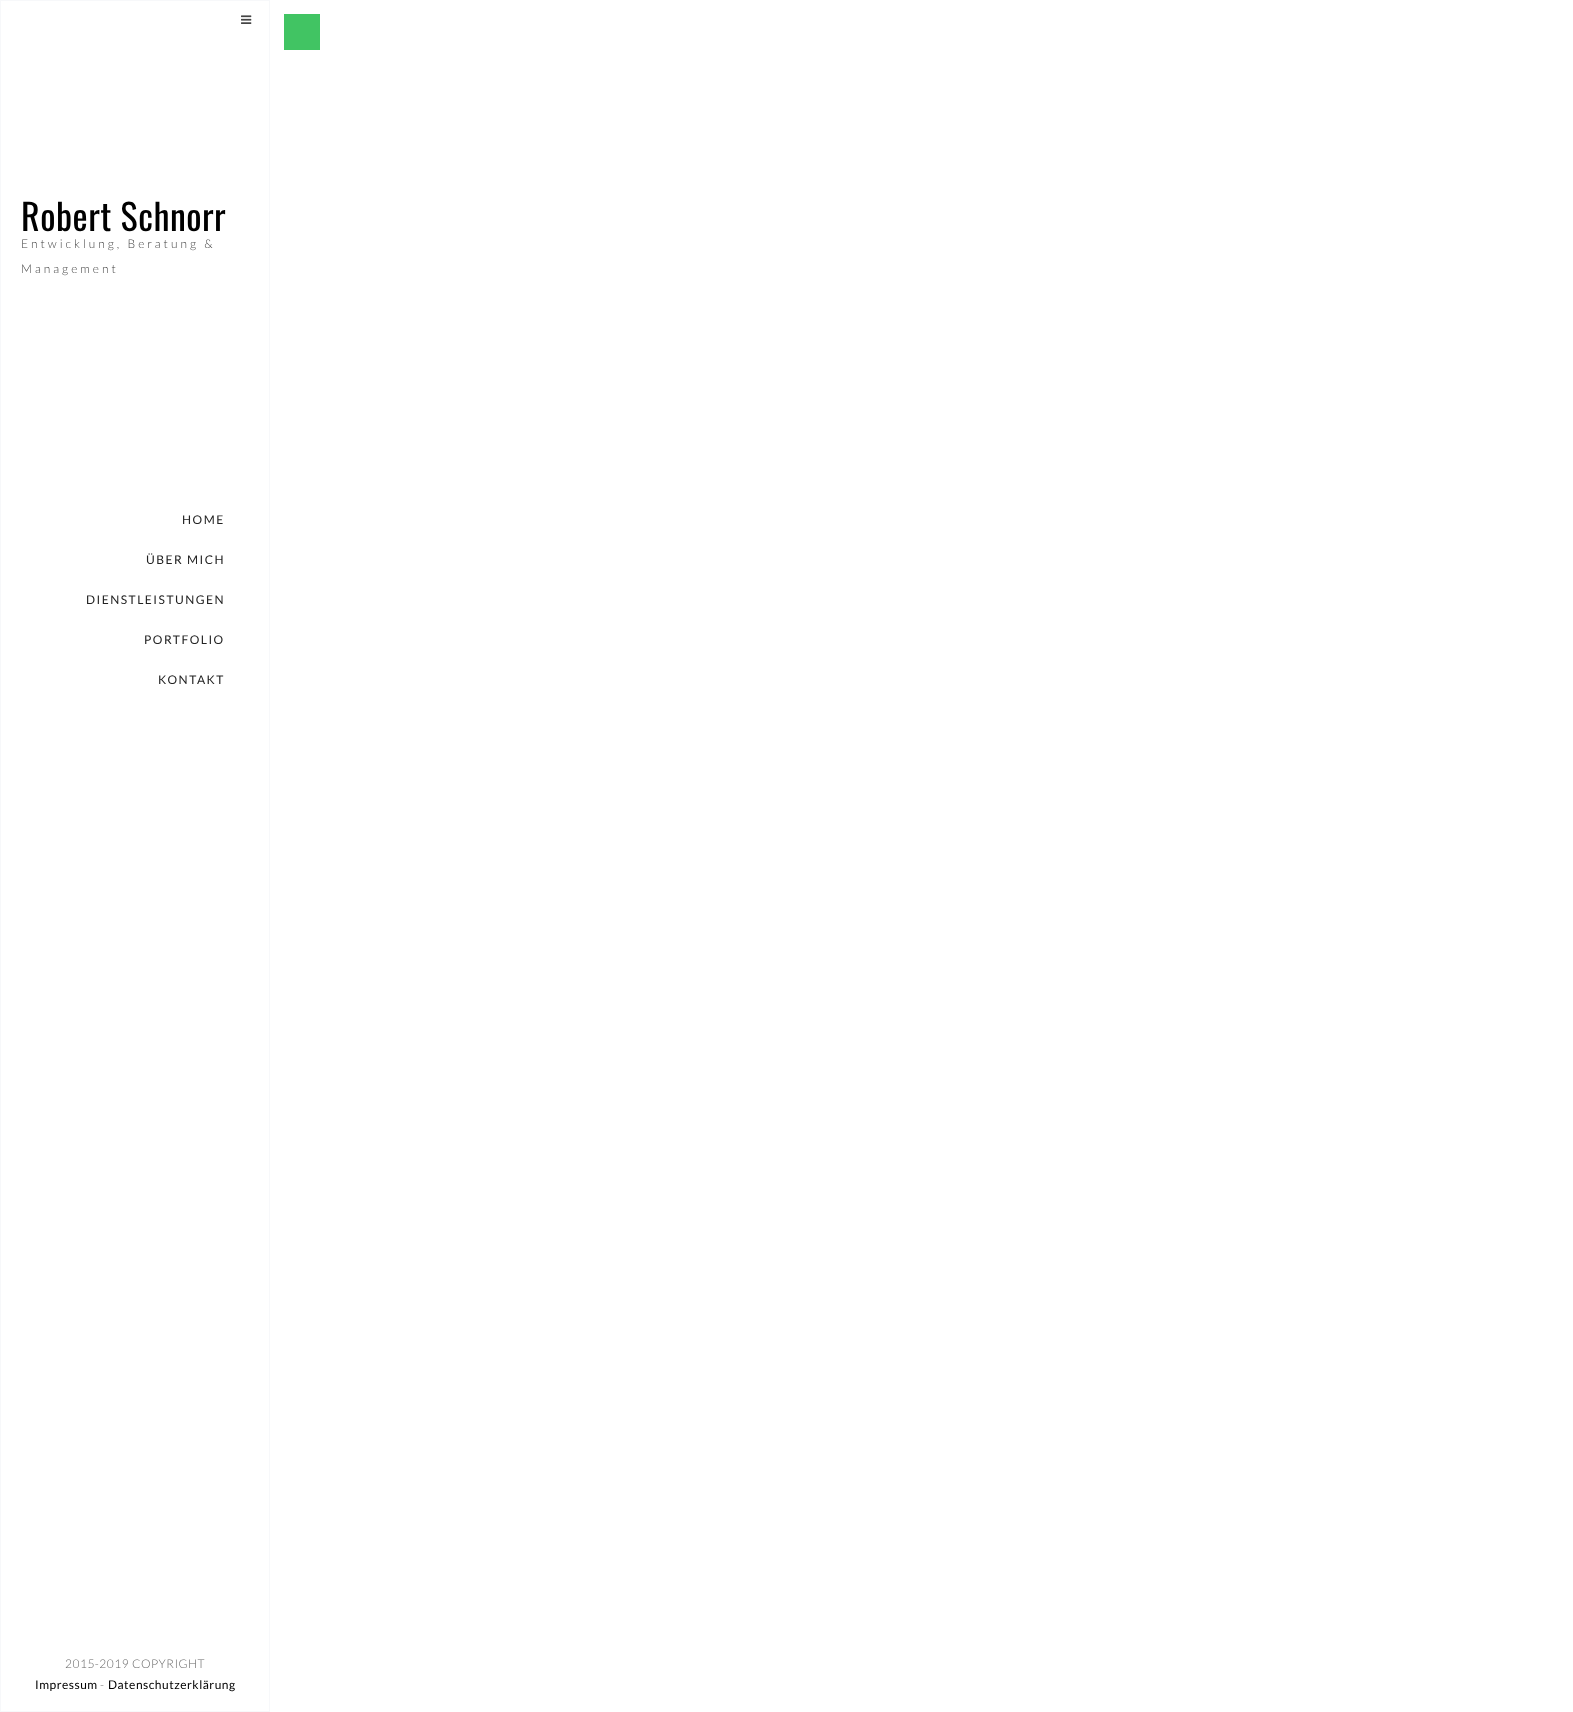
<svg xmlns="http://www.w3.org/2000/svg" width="1573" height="1712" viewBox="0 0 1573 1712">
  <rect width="100%" height="100%" fill="rgb(255,255,255)"/>
  <rect x="284" y="14" width="36" height="36" fill="rgb(65,196,99)"/>
  <rect x="0.5" y="0.5" width="269" height="1711" fill="none" stroke="rgb(247,248,250)"/>
  <image x="241" y="15" width="11" height="9" href="pic1.png"/>
  <text x="21" y="231" font-family="Oswald" font-size="36" letter-spacing="0.5" fill="rgb(0,0,0)">Robert Schnorr</text>
  <g font-family="Lato" font-size="12" font-weight="300" letter-spacing="3" fill="rgb(68,68,68)">
    <text x="21" y="248">Entwicklung, Beratung &amp;</text>
    <text x="21" y="273">Management</text>
  </g>
  <g font-family="Lato" font-size="12" letter-spacing="1.5" fill="rgb(34,34,34)">
    <text x="182" y="524">HOME</text>
    <text x="146" y="564">ÜBER MICH</text>
    <text x="86" y="604">DIENSTLEISTUNGEN</text>
    <text x="144" y="644">PORTFOLIO</text>
    <text x="158" y="684">KONTAKT</text>
  </g>
  <text x="65" y="1668" font-family="Lato" font-size="12" font-weight="300" letter-spacing="0.5" fill="rgb(102,102,102)">2015-2019 COPYRIGHT</text>
  <text x="35" y="1689" font-family="Lato" font-size="12" letter-spacing="0.5" fill="rgb(0,0,0)">Impressum</text>
  <text x="100" y="1689" font-family="Lato" font-size="12" font-weight="300" letter-spacing="0.5" fill="rgb(102,102,102)">-</text>
  <text x="108" y="1689" font-family="Lato" font-size="12" letter-spacing="0.5" fill="rgb(0,0,0)">Datenschutzerklärung</text>
</svg>
